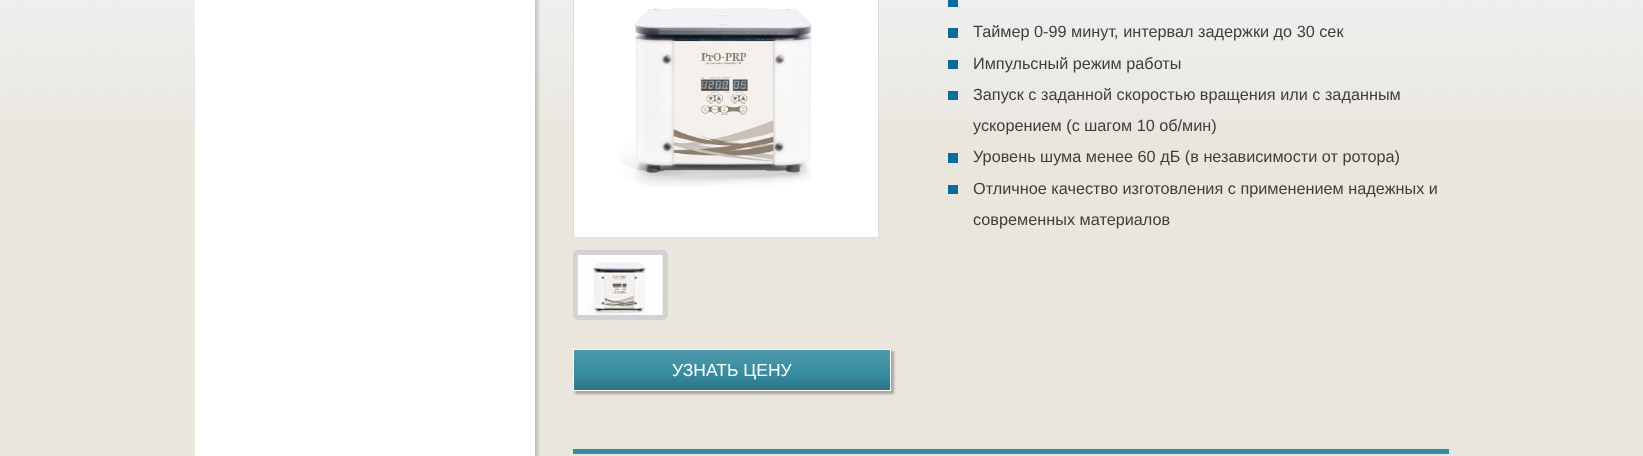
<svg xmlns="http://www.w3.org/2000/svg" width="1643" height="456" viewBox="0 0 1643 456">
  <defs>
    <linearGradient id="g1" gradientUnits="userSpaceOnUse" x1="732" y1="350" x2="732" y2="390"><stop offset="0" stop-color="rgb(78,154,172)"/><stop offset="0.56" stop-color="rgb(55,141,161)"/><stop offset="1" stop-color="rgb(44,116,133)"/></linearGradient>
  </defs>
  <rect width="100%" height="100%" fill="rgb(233,230,222)"/>
  <image x="0" y="0" width="1643" height="120" href="pic1.png"/>
  <rect x="195" y="0" width="340" height="456" fill="rgb(255,255,255)"/>
  <image x="535" y="0" width="5" height="456" href="pic2.png"/>
  <rect x="948" y="0" width="10" height="7" fill="rgb(8,108,157)"/>
  <rect x="948" y="28" width="10" height="10" fill="rgb(8,108,157)"/>
  <text x="973" y="37" font-family="Liberation Sans" font-size="16.25" fill="rgb(62,62,62)">Таймер 0-99 минут, интервал задержки до 30 сек</text>
  <rect x="948" y="60" width="10" height="9" fill="rgb(8,108,157)"/>
  <text x="973" y="69" font-family="Liberation Sans" font-size="16.25" fill="rgb(62,62,62)">Импульсный режим работы</text>
  <rect x="948" y="91" width="10" height="9" fill="rgb(8,108,157)"/>
  <g font-family="Liberation Sans" font-size="16.25" fill="rgb(62,62,62)">
    <text>
      <tspan x="973" y="100">Запуск с заданной скоростью вращения или с заданным</tspan>
      <tspan x="973" y="131">ускорением (с шагом 10 об/мин)</tspan>
    </text>
  </g>
  <rect x="948" y="153" width="10" height="10" fill="rgb(8,108,157)"/>
  <text x="973" y="162" font-family="Liberation Sans" font-size="16.25" fill="rgb(62,62,62)">Уровень шума менее 60 дБ (в независимости от ротора)</text>
  <rect x="948" y="185" width="10" height="9" fill="rgb(8,108,157)"/>
  <g font-family="Liberation Sans" font-size="16.25" fill="rgb(62,62,62)">
    <text>
      <tspan x="973" y="194">Отличное качество изготовления с применением надежных и</tspan>
      <tspan x="973" y="225">современных материалов</tspan>
    </text>
  </g>
  <rect x="573.5" y="-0.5" width="305" height="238" fill="rgb(255,255,255)" stroke="rgb(221,221,221)"/>
  <image x="617" y="8" width="195" height="180" href="pic3.png"/>
  <rect x="575.5" y="252.5" width="90" height="65" rx="2.5" fill="none" stroke="rgb(210,210,210)" stroke-width="5"/>
  <image x="577" y="255" width="86" height="60" href="pic4.png"/>
  <rect x="575" y="351" width="319" height="43" fill="rgba(50,50,50,0.35)" filter="blur(1px)"/>
  <rect x="574" y="350" width="316" height="40" fill="url(#g1)"/>
  <rect x="573.5" y="349.5" width="317" height="41" fill="none" stroke="rgb(255,255,255)"/>
  <text x="672" y="376" font-family="Liberation Sans" font-size="17.5" fill="rgb(255,255,255)">УЗНАТЬ ЦЕНУ</text>
  <rect x="573" y="449" width="876" height="5" fill="rgb(53,140,160)"/>
</svg>
